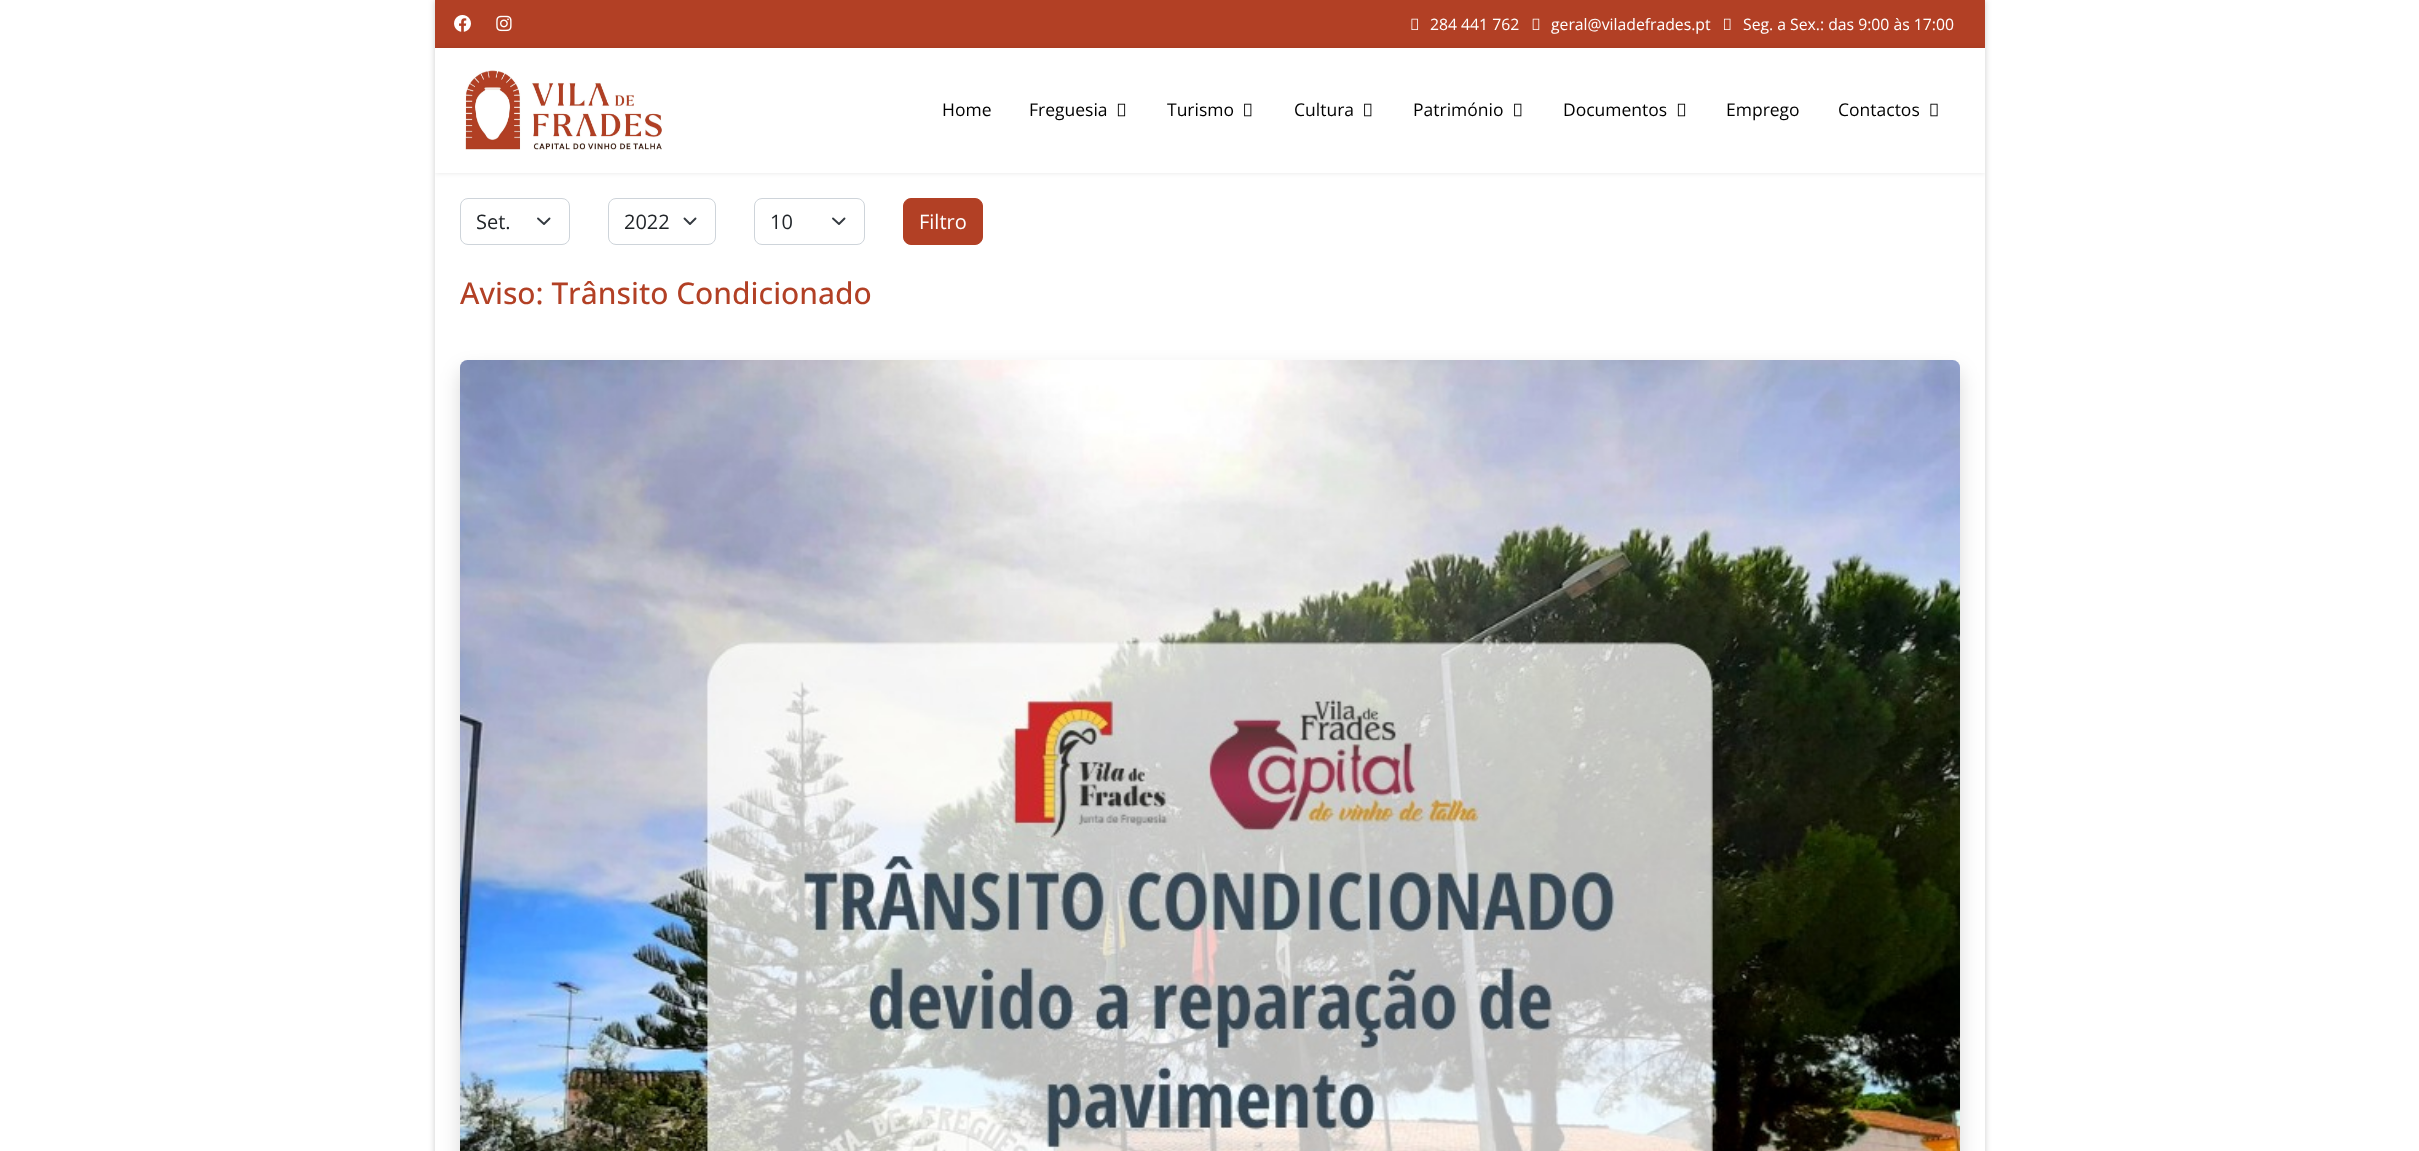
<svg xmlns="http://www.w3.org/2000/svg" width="2419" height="1151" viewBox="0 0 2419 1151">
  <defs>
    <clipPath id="clip1"><path d="M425 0H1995V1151H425ZM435 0H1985V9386H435Z" clip-rule="evenodd"/></clipPath>
    <clipPath id="clip2"><rect x="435" y="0" width="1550" height="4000"/></clipPath>
  </defs>
  <rect width="100%" height="100%" fill="rgb(255,255,255)"/>
  <g clip-path="url(#clip1)">
    <rect x="435" y="0" width="1550" height="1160" fill="rgba(0,0,0,0.2)" filter="blur(3px)"/>
  </g>
  <rect x="435" y="0" width="1550" height="48" fill="rgb(178,64,37)"/>
  <image x="454" y="15" width="17" height="17" href="pic1.png"/>
  <image x="496" y="15" width="16" height="17" href="pic2.png"/>
  <image x="1411" y="18" width="7" height="12" href="pic3.png"/>
  <text x="1430" y="30" font-family="Open Sans" font-size="15.75" fill="rgb(255,255,255)">284 441 762</text>
  <image x="1532" y="18" width="8" height="12" href="pic4.png"/>
  <text x="1551" y="30" font-family="Open Sans" font-size="15.75" fill="rgb(255,255,255)">geral@viladefrades.pt</text>
  <image x="1724" y="18" width="7" height="12" href="pic5.png"/>
  <text x="1743" y="30" font-family="Open Sans" font-size="15.75" fill="rgb(255,255,255)">Seg. a Sex.: das 9:00 às 17:00</text>
  <g clip-path="url(#clip2)">
    <rect x="435" y="48" width="1550" height="125" fill="rgba(0,0,0,0.1)" filter="blur(2.5px)"/>
  </g>
  <rect x="435" y="48" width="1550" height="125" fill="rgb(255,255,255)"/>
  <image x="465" y="70" width="197" height="80" href="pic6.png"/>
  <g font-family="Open Sans" font-size="17.5" fill="rgb(0,0,0)">
    <text x="942" y="116">Home</text>
    <text x="1029" y="116">Freguesia</text>
  </g>
  <image x="1117" y="103" width="9" height="14" href="pic7.png"/>
  <text x="1167" y="116" font-family="Open Sans" font-size="17.5" fill="rgb(0,0,0)">Turismo</text>
  <image x="1244" y="103" width="8" height="14" href="pic8.png"/>
  <text x="1294" y="116" font-family="Open Sans" font-size="17.5" fill="rgb(0,0,0)">Cultura</text>
  <image x="1364" y="103" width="8" height="14" href="pic8.png"/>
  <text x="1413" y="116" font-family="Open Sans" font-size="17.5" fill="rgb(0,0,0)">Património</text>
  <image x="1514" y="103" width="8" height="14" href="pic8.png"/>
  <text x="1563" y="116" font-family="Open Sans" font-size="17.5" fill="rgb(0,0,0)">Documentos</text>
  <image x="1677" y="103" width="9" height="14" href="pic7.png"/>
  <g font-family="Open Sans" font-size="17.5" fill="rgb(0,0,0)">
    <text x="1726" y="116">Emprego</text>
    <text x="1838" y="116">Contactos</text>
  </g>
  <image x="1930" y="103" width="8" height="14" href="pic9.png"/>
  <path d="M538 218.5L544 224L549.5 218.5" fill="none" stroke="rgb(52,58,64)" stroke-width="1.9" stroke-linecap="round" stroke-linejoin="round"/>
  <rect x="460.5" y="198.5" width="109" height="46" rx="7.5" fill="none" stroke="rgb(206,212,218)"/>
  <text x="476" y="229" font-family="Open Sans" font-size="20" fill="rgb(33,37,41)">Set.</text>
  <path d="M684.5 218.5L690 224L695.5 218.5" fill="none" stroke="rgb(52,58,64)" stroke-width="1.9" stroke-linecap="round" stroke-linejoin="round"/>
  <rect x="608.5" y="198.5" width="107" height="46" rx="7.5" fill="none" stroke="rgb(206,212,218)"/>
  <text x="624" y="229" font-family="Open Sans" font-size="20" fill="rgb(33,37,41)">2022</text>
  <path d="M833 218.5L839 224L844.5 218.5" fill="none" stroke="rgb(52,58,64)" stroke-width="1.9" stroke-linecap="round" stroke-linejoin="round"/>
  <rect x="754.5" y="198.5" width="110" height="46" rx="7.5" fill="none" stroke="rgb(206,212,218)"/>
  <text x="770" y="229" font-family="Open Sans" font-size="20" fill="rgb(33,37,41)">10</text>
  <rect x="903.5" y="198.5" width="79" height="46" rx="7.5" fill="rgb(178,64,37)" stroke="rgb(178,64,37)"/>
  <text x="919" y="229" font-family="Open Sans" font-size="20" fill="rgb(255,255,255)">Filtro</text>
  <text x="460" y="304" font-family="Open Sans" font-size="30" font-weight="500" fill="rgb(178,64,37)">Aviso: Trânsito Condicionado</text>
  <rect x="460" y="370" width="1500" height="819" rx="8" fill="rgba(0,0,0,0.15)" filter="blur(10px)"/>
  <image x="460" y="360" width="1500" height="791" href="pic10.png"/>
</svg>
